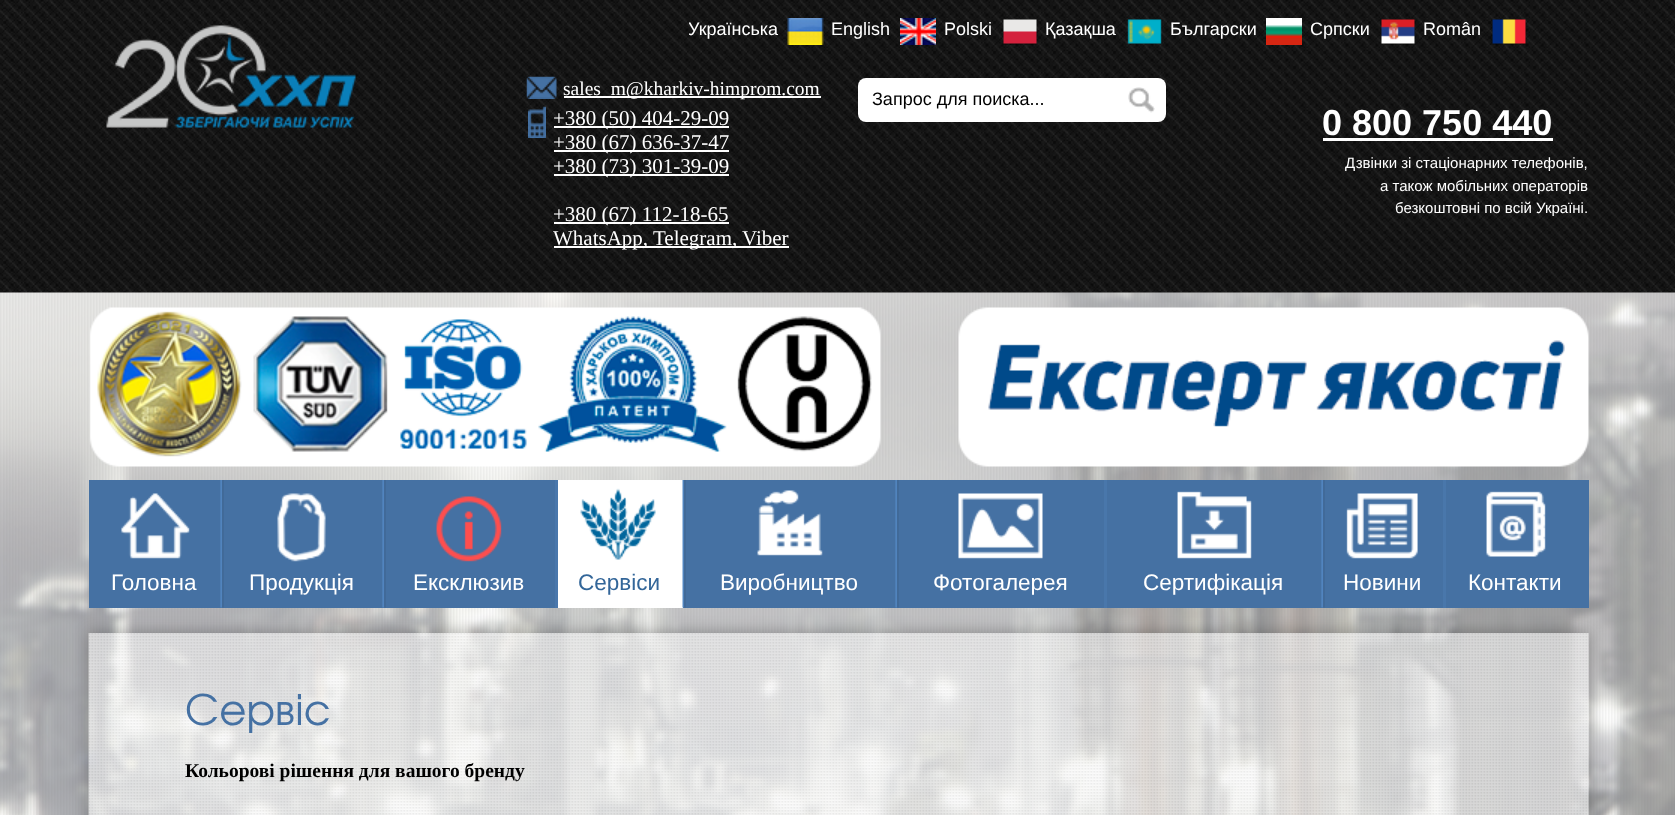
<svg xmlns="http://www.w3.org/2000/svg" width="1675" height="815" viewBox="0 0 1675 815">
  <defs>
    <clipPath id="clip1"><rect x="689" y="18" width="142" height="27"/></clipPath>
    <clipPath id="clip2"><path d="M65 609H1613V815H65ZM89 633H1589V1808H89Z" clip-rule="evenodd"/></clipPath>
  </defs>
  <rect width="100%" height="100%" fill="rgb(255,255,255)"/>
  <image x="0" y="292" width="1675" height="523" href="pic1.png"/>
  <image x="0" y="0" width="1675" height="293" href="pic2.png"/>
  <image x="106" y="25" width="250" height="103" href="pic3.png"/>
  <image x="526" y="76" width="31" height="23" href="pic4.png"/>
  <rect x="564" y="96" width="257" height="2" fill="rgb(255,255,255)"/>
  <text x="563" y="95" font-family="Liberation Serif" font-size="19.5" fill="rgb(255,255,255)">sales_m@kharkiv-himprom.com</text>
  <image x="528" y="106" width="18" height="32" href="pic5.png"/>
  <rect x="554" y="126" width="175" height="2" fill="rgb(255,255,255)"/>
  <text x="553" y="125" font-family="Liberation Serif" font-size="21" fill="rgb(255,255,255)">+380 (50) 404-29-09</text>
  <rect x="554" y="150" width="175" height="2" fill="rgb(255,255,255)"/>
  <text x="553" y="149" font-family="Liberation Serif" font-size="21" fill="rgb(255,255,255)">+380 (67) 636-37-47</text>
  <rect x="554" y="174" width="175" height="2" fill="rgb(255,255,255)"/>
  <text x="553" y="173" font-family="Liberation Serif" font-size="21" fill="rgb(255,255,255)">+380 (73) 301-39-09</text>
  <rect x="554" y="222" width="175" height="2" fill="rgb(255,255,255)"/>
  <text x="553" y="221" font-family="Liberation Serif" font-size="21" fill="rgb(255,255,255)">+380 (67) 112-18-65</text>
  <rect x="554" y="246" width="235" height="2" fill="rgb(255,255,255)"/>
  <g font-family="Liberation Serif" font-size="21" fill="rgb(255,255,255)">
    <text x="553" y="245">WhatsApp,</text>
    <text x="653" y="245">Telegram,</text>
    <text x="742" y="245">Viber</text>
  </g>
  <g clip-path="url(#clip1)">
    <text x="688" y="35" font-family="Liberation Sans" font-size="18" fill="rgb(255,255,255)">Українська</text>
  </g>
  <image x="787" y="18" width="37" height="27" href="pic6.png"/>
  <text x="831" y="35" font-family="Liberation Sans" font-size="18" fill="rgb(255,255,255)">English</text>
  <image x="900" y="18" width="36" height="27" href="pic7.png"/>
  <text x="944" y="35" font-family="Liberation Sans" font-size="18" fill="rgb(255,255,255)">Polski</text>
  <image x="1003" y="19" width="35" height="26" href="pic8.png"/>
  <text x="1045" y="35" font-family="Liberation Sans" font-size="18" fill="rgb(255,255,255)">Қазақша</text>
  <image x="1127" y="19" width="35" height="25" href="pic9.png"/>
  <text x="1170" y="35" font-family="Liberation Sans" font-size="18" fill="rgb(255,255,255)">Български</text>
  <image x="1266" y="18" width="36" height="27" href="pic10.png"/>
  <text x="1310" y="35" font-family="Liberation Sans" font-size="18" fill="rgb(255,255,255)">Српски</text>
  <image x="1380" y="19" width="35" height="26" href="pic11.png"/>
  <text x="1423" y="35" font-family="Liberation Sans" font-size="18" fill="rgb(255,255,255)">Român</text>
  <image x="1491" y="19" width="35" height="26" href="pic12.png"/>
  <rect x="858" y="78" width="308" height="44" rx="8" fill="rgb(255,255,255)"/>
  <text x="872" y="105" font-family="Liberation Sans" font-size="18" fill="rgb(0,0,0)">Запрос для поиска...</text>
  <image x="1128" y="87" width="27" height="26" href="pic13.png"/>
  <text x="1322" y="135" font-family="Liberation Sans" font-size="36" font-weight="bold" fill="rgb(255,255,255)">0 800 750 440</text>
  <rect x="1323" y="138" width="230" height="3" fill="rgb(255,255,255)"/>
  <g font-family="Liberation Sans" font-size="15" fill="rgb(255,255,255)">
    <text x="1345" y="168">Дзвінки зі стаціонарних телефонів,</text>
    <text x="1380" y="191">а також мобільних операторів</text>
    <text x="1395" y="213">безкоштовні по всій Україні.</text>
  </g>
  <image x="89" y="307" width="1500" height="160" href="pic14.png"/>
  <rect x="89" y="480" width="466" height="128" fill="rgb(69,113,163)"/>
  <image x="121" y="493" width="69" height="66" href="pic15.png"/>
  <text x="111" y="590" font-family="Liberation Sans" font-size="22.5" fill="rgb(255,255,255)">Головна</text>
  <image x="220" y="480" width="4" height="128" href="pic16.png"/>
  <image x="277" y="493" width="49" height="69" href="pic17.png"/>
  <text x="249" y="590" font-family="Liberation Sans" font-size="22.5" fill="rgb(255,255,255)">Продукція</text>
  <image x="382" y="480" width="4" height="128" href="pic18.png"/>
  <image x="436" y="496" width="66" height="66" href="pic19.png"/>
  <text x="413" y="590" font-family="Liberation Sans" font-size="22.5" fill="rgb(255,255,255)">Ексклюзив</text>
  <rect x="558" y="480" width="125" height="128" fill="rgb(255,255,255)"/>
  <rect x="555" y="480" width="3" height="128" fill="rgb(73,119,172)"/>
  <image x="580" y="488" width="76" height="72" href="pic20.png"/>
  <text x="578" y="590" font-family="Liberation Sans" font-size="22.5" fill="rgb(51,102,153)">Cервіси</text>
  <rect x="683" y="480" width="421" height="128" fill="rgb(69,113,163)"/>
  <image x="682" y="480" width="4" height="128" href="pic21.png"/>
  <image x="757" y="490" width="66" height="66" href="pic22.png"/>
  <text x="720" y="590" font-family="Liberation Sans" font-size="22.5" fill="rgb(255,255,255)">Виробництво</text>
  <image x="895" y="480" width="4" height="128" href="pic16.png"/>
  <image x="958" y="493" width="85" height="66" href="pic23.png"/>
  <text x="933" y="590" font-family="Liberation Sans" font-size="22.5" fill="rgb(255,255,255)">Фотогалерея</text>
  <rect x="1107" y="480" width="336" height="128" fill="rgb(69,113,163)"/>
  <rect x="1104" y="480" width="3" height="128" fill="rgb(73,119,171)"/>
  <image x="1177" y="491" width="75" height="68" href="pic24.png"/>
  <text x="1143" y="590" font-family="Liberation Sans" font-size="22.5" fill="rgb(255,255,255)">Сертифікація</text>
  <image x="1321" y="480" width="4" height="128" href="pic18.png"/>
  <image x="1346" y="493" width="72" height="66" href="pic25.png"/>
  <text x="1343" y="590" font-family="Liberation Sans" font-size="22.5" fill="rgb(255,255,255)">Новини</text>
  <rect x="1446" y="480" width="143" height="128" fill="rgb(69,113,163)"/>
  <rect x="1443" y="480" width="3" height="128" fill="rgb(73,119,171)"/>
  <image x="1486" y="491" width="60" height="66" href="pic26.png"/>
  <text x="1468" y="590" font-family="Liberation Sans" font-size="22.5" fill="rgb(255,255,255)">Контакти</text>
  <g clip-path="url(#clip2)">
    <rect x="89" y="633" width="1500" height="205" fill="rgba(0,0,0,0.3)" filter="blur(7.5px)"/>
  </g>
  <image x="88" y="633" width="1501" height="182" href="pic27.png"/>
  <text x="185" y="725" font-family="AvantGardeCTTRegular" font-size="42" fill="rgb(69,113,163)">Сервіс</text>
  <text x="185" y="777" font-family="Liberation Serif" font-size="19.5" font-weight="bold" fill="rgb(0,0,0)">Кольорові рішення для вашого бренду</text>
</svg>
